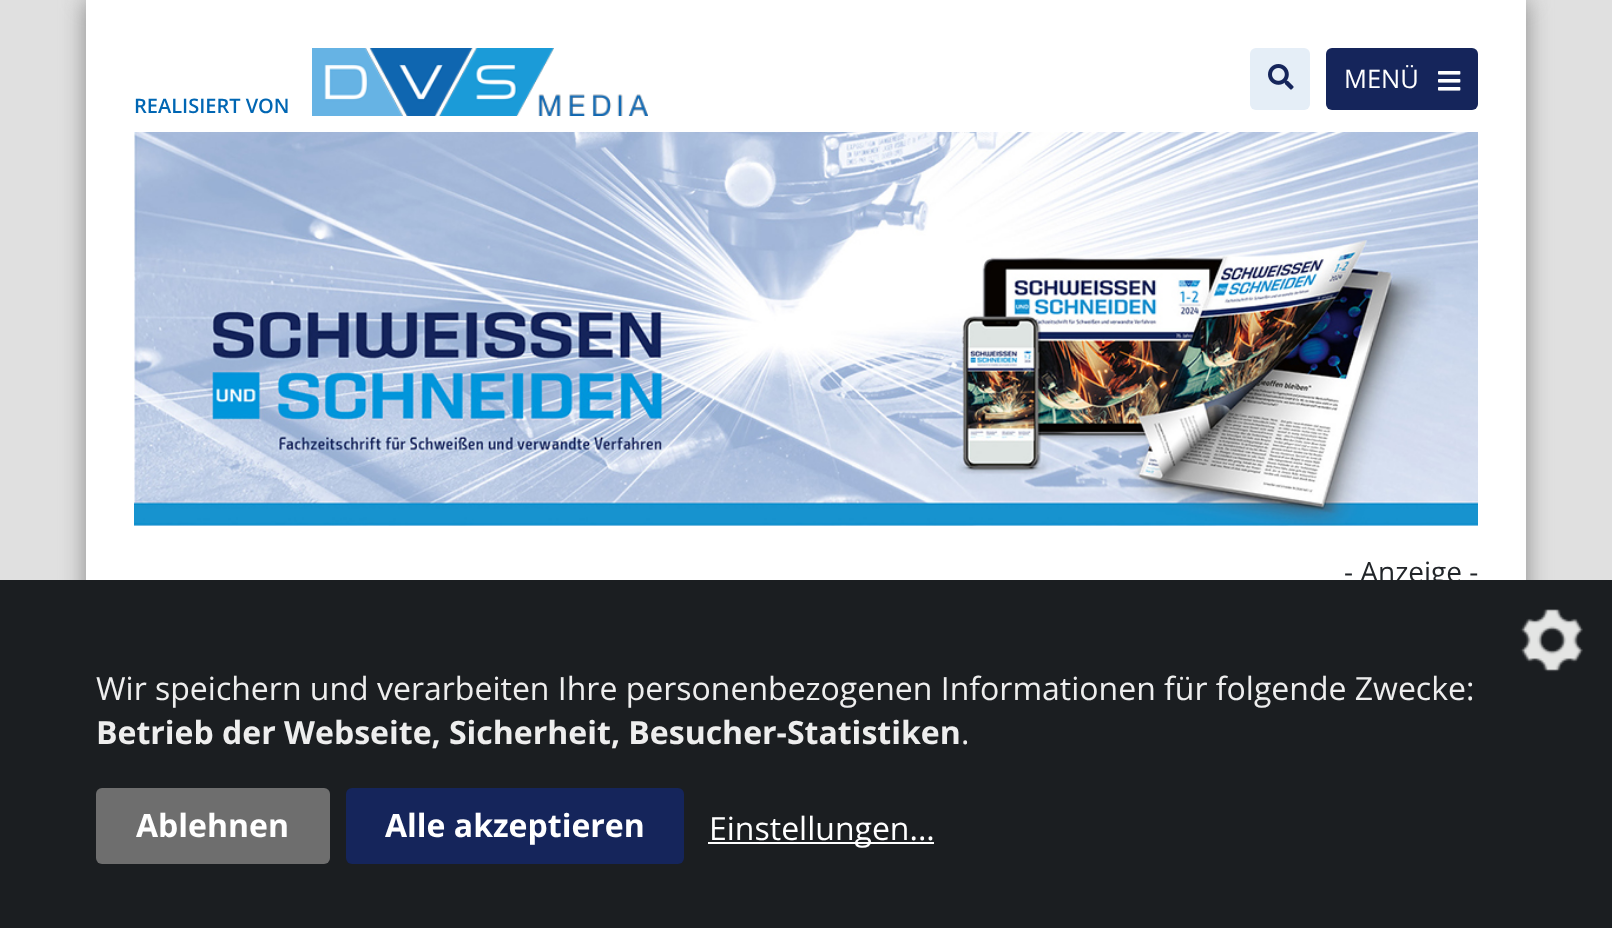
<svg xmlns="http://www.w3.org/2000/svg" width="1612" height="928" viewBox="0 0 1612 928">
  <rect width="100%" height="100%" fill="rgb(224,224,224)"/>
  <rect x="86" y="0" width="1440" height="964" fill="rgba(128,128,128,0.91)" filter="blur(12px)"/>
  <rect x="86" y="0" width="1440" height="580" fill="rgb(255,255,255)"/>
  <rect x="1250" y="48" width="60" height="62" rx="6" fill="rgb(229,238,247)"/>
  <image x="1268" y="64" width="26" height="26" href="pic1.png"/>
  <rect x="1326" y="48" width="152" height="62" rx="6" fill="rgb(21,37,91)"/>
  <text x="1344" y="88" font-family="Open Sans" font-size="25.5" fill="rgb(255,255,255)">MENÜ</text>
  <image x="1438" y="71" width="23" height="20" href="pic2.png"/>
  <text x="134" y="113" font-family="Open Sans" font-size="20" font-weight="600" fill="rgb(0,102,179)">REALISIERT VON</text>
  <image x="312" y="48" width="336" height="68" href="pic3.png"/>
  <image x="134" y="132" width="1344" height="394" href="pic4.png"/>
  <text x="1344" y="582" font-family="Open Sans" font-size="28" fill="rgb(33,37,41)">- Anzeige -</text>
  <rect x="0" y="580" width="1612" height="348" fill="rgb(27,30,33)"/>
  <image x="1520" y="609" width="63" height="63" href="pic5.png"/>
  <text x="96" y="700" font-family="Open Sans" font-size="32" fill="rgb(238,238,238)">Wir speichern und verarbeiten Ihre personenbezogenen Informationen für folgende Zwecke:</text>
  <text x="96" y="744" font-family="Open Sans" font-size="32" font-weight="bold" fill="rgb(238,238,238)">Betrieb der Webseite, Sicherheit, Besucher-Statistiken</text>
  <text x="961" y="744" font-family="Open Sans" font-size="32" fill="rgb(238,238,238)">.</text>
  <rect x="96" y="788" width="234" height="76" rx="6" fill="rgb(110,110,110)"/>
  <text x="136" y="837" font-family="Open Sans" font-size="32" font-weight="bold" fill="rgb(255,255,255)">Ablehnen</text>
  <rect x="346" y="788" width="338" height="76" rx="6" fill="rgb(21,37,91)"/>
  <text x="385" y="837" font-family="Open Sans" font-size="32" font-weight="bold" fill="rgb(255,255,255)">Alle akzeptieren</text>
  <rect x="708" y="842" width="226" height="2" fill="rgb(255,255,255)"/>
  <text x="709" y="840" font-family="Open Sans" font-size="32" fill="rgb(255,255,255)">Einstellungen...</text>
</svg>
